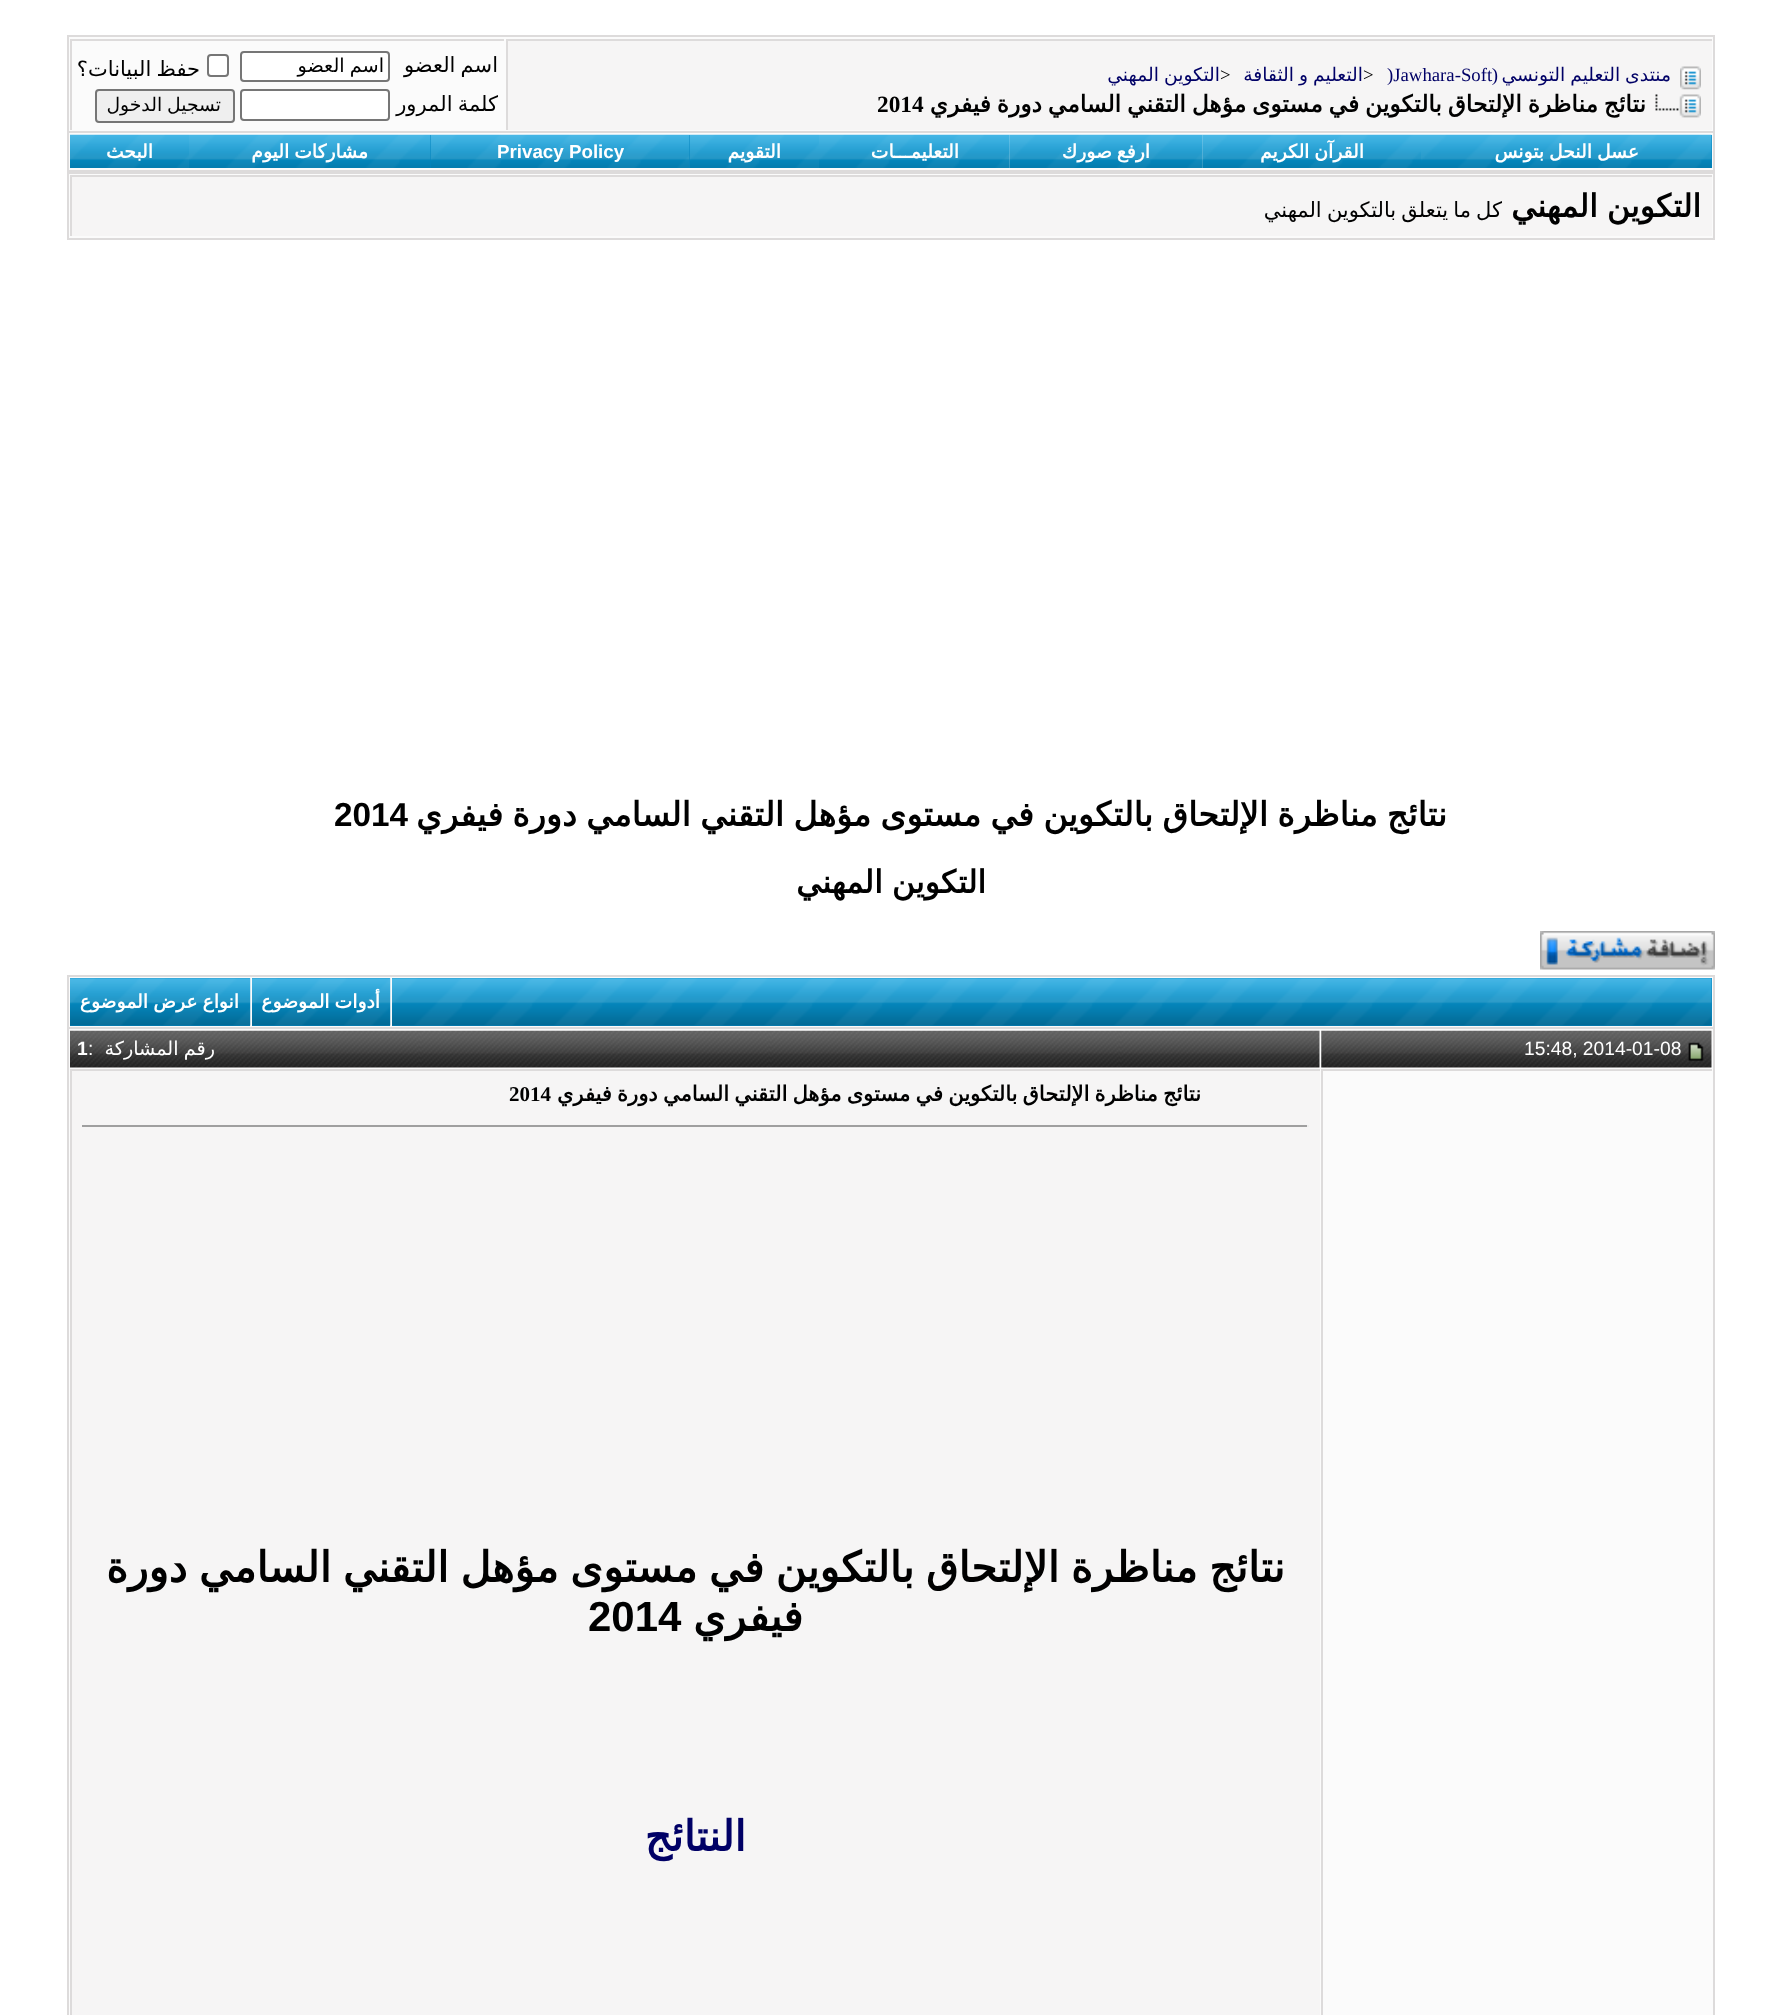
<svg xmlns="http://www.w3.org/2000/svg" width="1781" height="2015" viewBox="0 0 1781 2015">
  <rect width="100%" height="100%" fill="rgb(255,255,255)"/>
  <rect x="68" y="36" width="1646" height="96" fill="rgb(251,251,251)" stroke="rgb(221,219,219)" stroke-width="2"/>
  <rect x="508" y="41" width="1204" height="89" fill="rgb(246,245,245)"/>
  <rect x="506" y="39" width="1206" height="2" fill="rgb(221,219,219)"/>
  <rect x="506" y="39" width="2" height="91" fill="rgb(221,219,219)"/>
  <image x="1680" y="66" width="21" height="24" href="pic1.png"/>
  <text x="1671" y="81" word-spacing="-1" font-family="DejaVu Sans" font-size="18.75" direction="rtl" fill="rgb(0,0,102)">منتدى التعليم التونسي</text>
  <text x="1498" y="81" font-family="Liberation Serif" font-size="18.75" direction="rtl" fill="rgb(0,0,102)">(</text>
  <text x="1387" y="81" font-family="Liberation Serif" font-size="18.75" fill="rgb(0,0,102)">)Jawhara-Soft</text>
  <text x="1363" y="81" font-family="Liberation Serif" font-size="18.75" fill="rgb(0,0,0)">&gt;</text>
  <text x="1363" y="81" word-spacing="-1" font-family="DejaVu Sans" font-size="18.75" direction="rtl" fill="rgb(0,0,102)">التعليم و الثقافة</text>
  <text x="1220" y="81" font-family="Liberation Serif" font-size="18.75" fill="rgb(0,0,0)">&gt;</text>
  <text x="1220" y="81" word-spacing="-1" font-family="DejaVu Sans" font-size="18.75" direction="rtl" fill="rgb(0,0,102)">التكوين المهني</text>
  <image x="1655" y="94" width="46" height="24" href="pic2.png"/>
  <text x="1646" y="112" word-spacing="-1.5" font-family="DejaVu Sans" font-size="23.3" font-weight="bold" direction="rtl" fill="rgb(0,0,0)">نتائج مناظرة الإلتحاق بالتكوين في مستوى مؤهل التقني السامي دورة فيفري</text>
  <text x="877" y="112" font-family="Liberation Serif" font-size="23.3" font-weight="bold" fill="rgb(0,0,0)">2014</text>
  <rect x="70" y="39" width="434" height="2" fill="rgb(221,219,219)"/>
  <rect x="70" y="39" width="2" height="91" fill="rgb(221,219,219)"/>
  <text x="498" y="72" word-spacing="-1.5" font-family="DejaVu Sans" font-size="21" direction="rtl" fill="rgb(0,0,0)">اسم العضو</text>
  <rect x="241" y="52" width="148" height="29" rx="3" fill="rgb(255,255,255)" stroke="rgb(118,118,118)" stroke-width="2"/>
  <text x="384" y="72" word-spacing="-1" font-family="DejaVu Sans" font-size="19.25" direction="rtl" fill="rgb(0,0,0)">اسم العضو</text>
  <rect x="208" y="55" width="20" height="21" rx="3" fill="rgb(255,255,255)" stroke="rgb(118,118,118)" stroke-width="2"/>
  <g font-family="DejaVu Sans" font-size="21" direction="rtl" fill="rgb(0,0,0)">
    <text x="200" y="76" word-spacing="-1.5">حفظ البيانات؟</text>
    <text x="498" y="111" word-spacing="-1.5">كلمة المرور</text>
  </g>
  <rect x="241" y="90" width="148" height="30" rx="3" fill="rgb(255,255,255)" stroke="rgb(118,118,118)" stroke-width="2"/>
  <rect x="96" y="90" width="138" height="32" rx="3" fill="rgb(239,239,239)" stroke="rgb(118,118,118)" stroke-width="2"/>
  <text x="221" y="111" word-spacing="-1" font-family="DejaVu Sans" font-size="18.75" direction="rtl" fill="rgb(0,0,0)">تسجيل الدخول</text>
  <rect x="69" y="133" width="1644" height="37" fill="rgb(251,251,251)"/>
  <rect x="1713" y="133" width="2" height="39" fill="rgb(221,219,219)"/>
  <rect x="67" y="170" width="1648" height="2" fill="rgb(221,219,219)"/>
  <rect x="67" y="133" width="2" height="39" fill="rgb(221,219,219)"/>
  <rect x="1711" y="135" width="1" height="33" fill="rgb(5,132,191)"/>
  <image x="1421" y="134" width="291" height="34" href="pic3.png"/>
  <text x="1639" y="158" word-spacing="-1" font-family="DejaVu Sans" font-size="18.75" font-weight="bold" direction="rtl" fill="rgb(255,255,255)">عسل النحل بتونس</text>
  <image x="1202" y="134" width="219" height="34" href="pic4.png"/>
  <text x="1364" y="158" word-spacing="-1" font-family="DejaVu Sans" font-size="18.75" font-weight="bold" direction="rtl" fill="rgb(255,255,255)">القرآن الكريم</text>
  <image x="1009" y="134" width="194" height="34" href="pic5.png"/>
  <text x="1150" y="158" word-spacing="-1" font-family="DejaVu Sans" font-size="18.75" font-weight="bold" direction="rtl" fill="rgb(255,255,255)">ارفع صورك</text>
  <image x="819" y="134" width="191" height="34" href="pic6.png"/>
  <text x="959" y="158" font-family="DejaVu Sans" font-size="18.75" font-weight="bold" direction="rtl" fill="rgb(255,255,255)">التعليمـــات</text>
  <image x="689" y="134" width="130" height="34" href="pic7.png"/>
  <text x="781" y="158" font-family="DejaVu Sans" font-size="18.75" font-weight="bold" direction="rtl" fill="rgb(255,255,255)">التقويم</text>
  <rect x="689" y="135" width="1" height="33" fill="rgb(5,132,191)"/>
  <image x="430" y="134" width="260" height="34" href="pic8.png"/>
  <text x="497" y="158" font-family="Liberation Sans" font-size="18.75" font-weight="bold" fill="rgb(255,255,255)">Privacy Policy</text>
  <rect x="430" y="135" width="1" height="33" fill="rgb(5,132,191)"/>
  <image x="189" y="134" width="242" height="34" href="pic9.png"/>
  <text x="368" y="158" word-spacing="-1" font-family="DejaVu Sans" font-size="18.75" font-weight="bold" direction="rtl" fill="rgb(255,255,255)">مشاركات اليوم</text>
  <image x="70" y="134" width="119" height="34" href="pic10.png"/>
  <text x="153" y="158" font-family="DejaVu Sans" font-size="18.75" font-weight="bold" direction="rtl" fill="rgb(255,255,255)">البحث</text>
  <rect x="68" y="173" width="1646" height="66" fill="rgb(251,251,251)" stroke="rgb(221,219,219)" stroke-width="2"/>
  <rect x="72" y="177" width="1640" height="59" fill="rgb(246,245,245)"/>
  <rect x="70" y="175" width="1642" height="2" fill="rgb(221,219,219)"/>
  <rect x="70" y="175" width="2" height="61" fill="rgb(221,219,219)"/>
  <text x="1701" y="217" word-spacing="-1" font-family="DejaVu Sans" font-size="31.5" font-weight="bold" direction="rtl" fill="rgb(0,0,0)">التكوين المهني</text>
  <text x="1502" y="217" word-spacing="-1.5" font-family="DejaVu Sans" font-size="21" direction="rtl" fill="rgb(0,0,0)">كل ما يتعلق بالتكوين المهني</text>
  <text x="1447" y="826" word-spacing="-1.25" font-family="DejaVu Sans" font-size="33.25" font-weight="bold" direction="rtl" fill="rgb(0,0,0)">نتائج مناظرة الإلتحاق بالتكوين في مستوى مؤهل التقني السامي دورة فيفري</text>
  <text x="334" y="826" font-family="Liberation Sans" font-size="33.25" font-weight="bold" fill="rgb(0,0,0)">2014</text>
  <text x="986" y="893" word-spacing="-1" font-family="DejaVu Sans" font-size="31.5" font-weight="bold" direction="rtl" fill="rgb(0,0,0)">التكوين المهني</text>
  <image x="1540" y="931" width="175" height="39" href="pic11.png"/>
  <rect x="69" y="977" width="1644" height="50" fill="rgb(251,251,251)"/>
  <rect x="67" y="975" width="1648" height="2" fill="rgb(221,219,219)"/>
  <rect x="1713" y="975" width="2" height="52" fill="rgb(221,219,219)"/>
  <rect x="67" y="975" width="2" height="52" fill="rgb(221,219,219)"/>
  <rect x="392" y="978" width="1320" height="48" fill="rgb(5,132,191)"/>
  <image x="392" y="978" width="1320" height="48" href="pic12.png"/>
  <rect x="252" y="978" width="138" height="48" fill="rgb(5,132,191)"/>
  <image x="252" y="978" width="139" height="48" href="pic13.png"/>
  <text x="380" y="1008" word-spacing="-1" font-family="DejaVu Sans" font-size="18.75" font-weight="bold" direction="rtl" fill="rgb(255,255,255)">أدوات الموضوع</text>
  <rect x="70" y="978" width="180" height="48" fill="rgb(5,132,191)"/>
  <image x="70" y="978" width="181" height="48" href="pic14.png"/>
  <g font-family="DejaVu Sans" font-size="18.75" font-weight="bold" direction="rtl" fill="rgb(255,255,255)">
    <text x="239" y="1008" word-spacing="-1">انواع عرض</text>
    <text x="148" y="1008">الموضوع</text>
  </g>
  <rect x="68" y="1028" width="1646" height="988" fill="rgb(251,251,251)" stroke="rgb(221,219,219)" stroke-width="2"/>
  <rect x="1321" y="1031" width="391" height="37" fill="rgb(255,255,255)"/>
  <image x="1321" y="1030" width="391" height="38" href="pic15.png"/>
  <image x="1688" y="1042" width="16" height="19" href="pic16.png"/>
  <text x="1524" y="1055" font-family="Liberation Sans" font-size="19.25" fill="rgb(255,255,255)">15:48, 2014-01-08</text>
  <rect x="70" y="1031" width="1250" height="37" fill="rgb(255,255,255)"/>
  <image x="70" y="1030" width="1250" height="38" href="pic17.png"/>
  <text x="215" y="1055" word-spacing="-1" font-family="DejaVu Sans" font-size="19.25" direction="rtl" fill="rgb(255,255,255)">رقم المشاركة</text>
  <text x="88" y="1055" font-family="Liberation Sans" font-size="19.25" fill="rgb(255,255,255)">:</text>
  <text x="77" y="1055" font-family="Liberation Sans" font-size="19.25" font-weight="bold" fill="rgb(255,255,255)">1</text>
  <rect x="1321" y="1069" width="391" height="2" fill="rgb(221,219,219)"/>
  <rect x="1321" y="1069" width="2" height="946" fill="rgb(221,219,219)"/>
  <rect x="72" y="1071" width="1248" height="944" fill="rgb(246,245,245)"/>
  <rect x="70" y="1069" width="1250" height="2" fill="rgb(221,219,219)"/>
  <rect x="70" y="1069" width="2" height="946" fill="rgb(221,219,219)"/>
  <text x="1201" y="1101" word-spacing="-1.5" font-family="DejaVu Sans" font-size="21" font-weight="bold" direction="rtl" fill="rgb(0,0,0)">نتائج مناظرة الإلتحاق بالتكوين في مستوى مؤهل التقني السامي دورة فيفري</text>
  <text x="509" y="1101" font-family="Liberation Serif" font-size="21" font-weight="bold" fill="rgb(0,0,0)">2014</text>
  <rect x="82" y="1125" width="1227" height="2" fill="rgb(159,159,159)"/>
  <rect x="1307" y="1125" width="2" height="2" fill="rgb(238,238,238)"/>
  <g font-family="DejaVu Sans" font-size="42" font-weight="bold" direction="rtl" fill="rgb(0,0,0)">
    <text x="1285" y="1582" word-spacing="-1.75">نتائج مناظرة الإلتحاق بالتكوين في مستوى مؤهل التقني السامي دورة</text>
    <text x="803" y="1631">فيفري</text>
  </g>
  <text x="588" y="1631" font-family="Liberation Sans" font-size="42" font-weight="bold" fill="rgb(0,0,0)">2014</text>
  <text x="746" y="1851" font-family="DejaVu Sans" font-size="42" font-weight="bold" direction="rtl" fill="rgb(0,0,102)">النتائج</text>
</svg>
